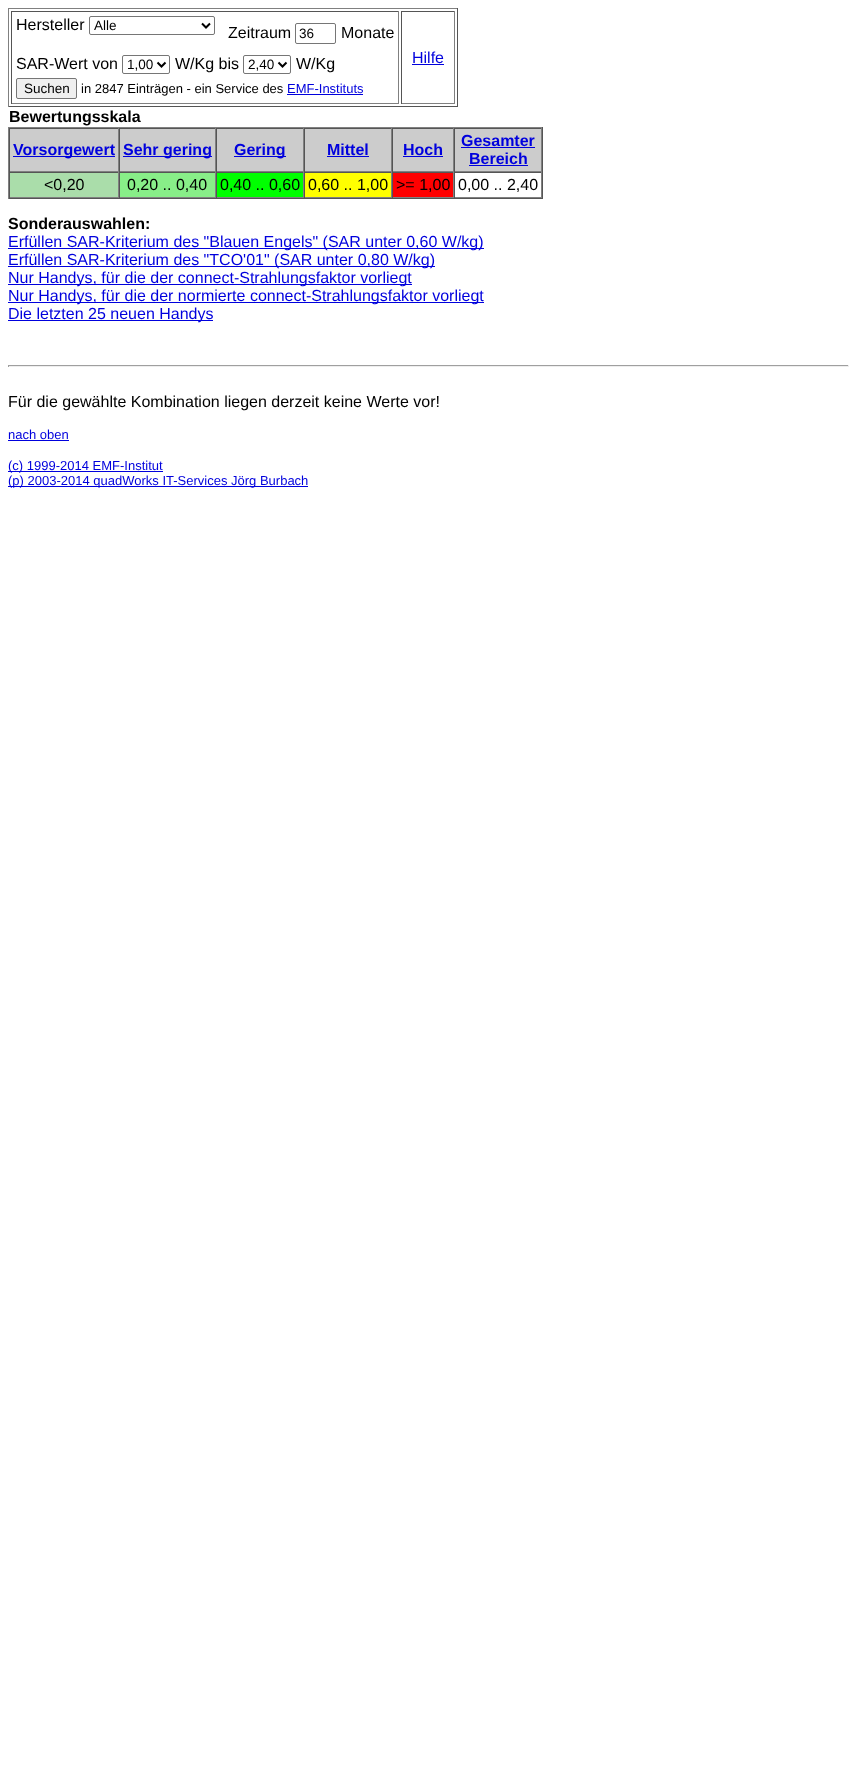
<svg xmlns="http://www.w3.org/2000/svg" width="857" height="1783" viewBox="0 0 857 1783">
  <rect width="100%" height="100%" fill="rgb(255,255,255)"/>
  <rect x="8" y="8" width="450" height="1" fill="rgb(128,128,128)"/>
  <rect x="457" y="8" width="1" height="99" fill="rgb(85,85,85)"/>
  <rect x="8" y="106" width="450" height="1" fill="rgb(85,85,85)"/>
  <rect x="8" y="8" width="1" height="99" fill="rgb(128,128,128)"/>
  <rect x="11" y="11" width="388" height="1" fill="rgb(85,85,85)"/>
  <rect x="398" y="11" width="1" height="93" fill="rgb(128,128,128)"/>
  <rect x="11" y="103" width="388" height="1" fill="rgb(128,128,128)"/>
  <rect x="11" y="11" width="1" height="93" fill="rgb(85,85,85)"/>
  <text x="16" y="30" font-family="Liberation Sans" font-size="16" fill="rgb(0,0,0)">Hersteller</text>
  <rect x="89.5" y="16.5" width="125" height="18" rx="1.5" fill="none" stroke="rgb(118,118,118)"/>
  <path d="M202 23.5L206 27.5L210 23.5" fill="none" stroke="rgb(0,0,0)" stroke-width="2"/>
  <text x="94" y="30" font-family="Liberation Sans" font-size="13.5" fill="rgb(0,0,0)">Alle</text>
  <text x="228" y="38" font-family="Liberation Sans" font-size="16" fill="rgb(0,0,0)">Zeitraum</text>
  <rect x="295.5" y="23.5" width="40" height="20" rx="1.5" fill="none" stroke="rgb(118,118,118)"/>
  <text x="299" y="38" font-family="Liberation Sans" font-size="13.5" fill="rgb(0,0,0)">36</text>
  <g font-family="Liberation Sans" font-size="16" fill="rgb(0,0,0)">
    <text x="341" y="38">Monate</text>
    <text x="16" y="69">SAR-Wert von</text>
  </g>
  <rect x="122.5" y="55.5" width="47" height="18" rx="1.5" fill="none" stroke="rgb(118,118,118)"/>
  <path d="M157.5 62.5L161.5 66.5L165.5 62.5" fill="none" stroke="rgb(0,0,0)" stroke-width="2"/>
  <text x="127" y="69" font-family="Liberation Sans" font-size="13.5" fill="rgb(0,0,0)">1,00</text>
  <text x="175" y="69" font-family="Liberation Sans" font-size="16" fill="rgb(0,0,0)">W/Kg bis</text>
  <rect x="243.5" y="55.5" width="47" height="18" rx="1.5" fill="none" stroke="rgb(118,118,118)"/>
  <path d="M278.5 62.5L282.5 66.5L286.5 62.5" fill="none" stroke="rgb(0,0,0)" stroke-width="2"/>
  <text x="248" y="69" font-family="Liberation Sans" font-size="13.5" fill="rgb(0,0,0)">2,40</text>
  <text x="296" y="69" font-family="Liberation Sans" font-size="16" fill="rgb(0,0,0)">W/Kg</text>
  <rect x="16.5" y="78.5" width="60" height="20" rx="1.5" fill="rgb(239,239,239)" stroke="rgb(118,118,118)"/>
  <text x="24" y="93" font-family="Liberation Sans" font-size="13.5" fill="rgb(0,0,0)">Suchen</text>
  <text x="81" y="93" font-family="Liberation Sans" font-size="13" fill="rgb(0,0,0)">in 2847 Einträgen - ein Service des</text>
  <text x="287" y="93" font-family="Liberation Sans" font-size="13" fill="rgb(0,0,221)">EMF-Instituts</text>
  <rect x="287" y="94" width="76" height="1" fill="rgb(0,0,221)"/>
  <rect x="401" y="11" width="54" height="1" fill="rgb(85,85,85)"/>
  <rect x="454" y="11" width="1" height="93" fill="rgb(128,128,128)"/>
  <rect x="401" y="103" width="54" height="1" fill="rgb(128,128,128)"/>
  <rect x="401" y="11" width="1" height="93" fill="rgb(85,85,85)"/>
  <text x="412" y="63" font-family="Liberation Sans" font-size="16" fill="rgb(0,0,221)">Hilfe</text>
  <rect x="412" y="64" width="32" height="1" fill="rgb(0,0,221)"/>
  <text x="9" y="122" font-family="Liberation Sans" font-size="16" font-weight="bold" fill="rgb(0,0,0)">Bewertungsskala</text>
  <rect x="8" y="127" width="535" height="1" fill="rgb(128,128,128)"/>
  <rect x="542" y="127" width="1" height="72" fill="rgb(85,85,85)"/>
  <rect x="8" y="198" width="535" height="1" fill="rgb(85,85,85)"/>
  <rect x="8" y="127" width="1" height="72" fill="rgb(128,128,128)"/>
  <rect x="10" y="129" width="108" height="42" fill="rgb(204,204,204)"/>
  <rect x="9" y="128" width="533" height="1" fill="rgb(85,85,85)"/>
  <rect x="118" y="128" width="1" height="44" fill="rgb(128,128,128)"/>
  <rect x="9" y="171" width="110" height="1" fill="rgb(128,128,128)"/>
  <rect x="9" y="128" width="1" height="44" fill="rgb(85,85,85)"/>
  <rect x="13" y="156" width="102" height="1" fill="rgb(0,0,221)"/>
  <text x="13" y="155" font-family="Liberation Sans" font-size="16" font-weight="bold" fill="rgb(0,0,221)">Vorsorgewert</text>
  <rect x="120" y="129" width="95" height="42" fill="rgb(204,204,204)"/>
  <rect x="215" y="128" width="1" height="44" fill="rgb(128,128,128)"/>
  <rect x="119" y="171" width="97" height="1" fill="rgb(128,128,128)"/>
  <rect x="119" y="128" width="1" height="44" fill="rgb(85,85,85)"/>
  <rect x="123" y="156" width="89" height="1" fill="rgb(0,0,221)"/>
  <text x="123" y="155" font-family="Liberation Sans" font-size="16" font-weight="bold" fill="rgb(0,0,221)">Sehr gering</text>
  <rect x="217" y="129" width="86" height="42" fill="rgb(204,204,204)"/>
  <rect x="303" y="128" width="1" height="44" fill="rgb(128,128,128)"/>
  <rect x="216" y="171" width="88" height="1" fill="rgb(128,128,128)"/>
  <rect x="216" y="128" width="1" height="44" fill="rgb(85,85,85)"/>
  <rect x="234" y="156" width="52" height="1" fill="rgb(0,0,221)"/>
  <text x="234" y="155" font-family="Liberation Sans" font-size="16" font-weight="bold" fill="rgb(0,0,221)">Gering</text>
  <rect x="305" y="129" width="86" height="42" fill="rgb(204,204,204)"/>
  <rect x="391" y="128" width="1" height="44" fill="rgb(128,128,128)"/>
  <rect x="304" y="171" width="88" height="1" fill="rgb(128,128,128)"/>
  <rect x="304" y="128" width="1" height="44" fill="rgb(85,85,85)"/>
  <text x="327" y="155" font-family="Liberation Sans" font-size="16" font-weight="bold" fill="rgb(0,0,221)">Mittel</text>
  <rect x="327" y="156" width="42" height="1" fill="rgb(0,0,221)"/>
  <rect x="393" y="129" width="60" height="42" fill="rgb(204,204,204)"/>
  <rect x="453" y="128" width="1" height="44" fill="rgb(128,128,128)"/>
  <rect x="392" y="171" width="62" height="1" fill="rgb(128,128,128)"/>
  <rect x="392" y="128" width="1" height="44" fill="rgb(85,85,85)"/>
  <text x="403" y="155" font-family="Liberation Sans" font-size="16" font-weight="bold" fill="rgb(0,0,221)">Hoch</text>
  <rect x="403" y="156" width="40" height="1" fill="rgb(0,0,221)"/>
  <rect x="455" y="129" width="86" height="42" fill="rgb(204,204,204)"/>
  <rect x="541" y="128" width="1" height="44" fill="rgb(128,128,128)"/>
  <rect x="454" y="171" width="88" height="1" fill="rgb(128,128,128)"/>
  <rect x="454" y="128" width="1" height="44" fill="rgb(85,85,85)"/>
  <text x="461" y="146" font-family="Liberation Sans" font-size="16" font-weight="bold" fill="rgb(0,0,221)">Gesamter</text>
  <rect x="461" y="147" width="74" height="1" fill="rgb(0,0,221)"/>
  <text x="469" y="164" font-family="Liberation Sans" font-size="16" font-weight="bold" fill="rgb(0,0,221)">Bereich</text>
  <rect x="469" y="165" width="59" height="1" fill="rgb(0,0,221)"/>
  <rect x="10" y="173" width="108" height="24" fill="rgb(170,221,170)"/>
  <rect x="9" y="172" width="533" height="1" fill="rgb(85,85,85)"/>
  <rect x="118" y="172" width="1" height="26" fill="rgb(128,128,128)"/>
  <rect x="9" y="197" width="110" height="1" fill="rgb(128,128,128)"/>
  <rect x="9" y="172" width="1" height="26" fill="rgb(85,85,85)"/>
  <text x="44" y="190" font-family="Liberation Sans" font-size="16" fill="rgb(0,0,0)">&lt;0,20</text>
  <rect x="120" y="173" width="95" height="24" fill="rgb(136,238,136)"/>
  <rect x="215" y="172" width="1" height="26" fill="rgb(128,128,128)"/>
  <rect x="119" y="197" width="97" height="1" fill="rgb(128,128,128)"/>
  <rect x="119" y="172" width="1" height="26" fill="rgb(85,85,85)"/>
  <text x="127" y="190" font-family="Liberation Sans" font-size="16" fill="rgb(0,0,0)">0,20 .. 0,40</text>
  <rect x="217" y="173" width="86" height="24" fill="rgb(0,255,0)"/>
  <rect x="303" y="172" width="1" height="26" fill="rgb(128,128,128)"/>
  <rect x="216" y="197" width="88" height="1" fill="rgb(128,128,128)"/>
  <rect x="216" y="172" width="1" height="26" fill="rgb(85,85,85)"/>
  <text x="220" y="190" font-family="Liberation Sans" font-size="16" fill="rgb(0,0,0)">0,40 .. 0,60</text>
  <rect x="305" y="173" width="86" height="24" fill="rgb(255,255,0)"/>
  <rect x="391" y="172" width="1" height="26" fill="rgb(128,128,128)"/>
  <rect x="304" y="197" width="88" height="1" fill="rgb(128,128,128)"/>
  <rect x="304" y="172" width="1" height="26" fill="rgb(85,85,85)"/>
  <text x="308" y="190" font-family="Liberation Sans" font-size="16" fill="rgb(0,0,0)">0,60 .. 1,00</text>
  <rect x="393" y="173" width="60" height="24" fill="rgb(255,0,0)"/>
  <rect x="453" y="172" width="1" height="26" fill="rgb(128,128,128)"/>
  <rect x="392" y="197" width="62" height="1" fill="rgb(128,128,128)"/>
  <rect x="392" y="172" width="1" height="26" fill="rgb(85,85,85)"/>
  <text x="396" y="190" font-family="Liberation Sans" font-size="16" fill="rgb(0,0,0)">&gt;= 1,00</text>
  <rect x="541" y="172" width="1" height="26" fill="rgb(128,128,128)"/>
  <rect x="454" y="197" width="88" height="1" fill="rgb(128,128,128)"/>
  <rect x="454" y="172" width="1" height="26" fill="rgb(85,85,85)"/>
  <text x="458" y="190" font-family="Liberation Sans" font-size="16" fill="rgb(0,0,0)">0,00 .. 2,40</text>
  <text x="8" y="229" font-family="Liberation Sans" font-size="16" font-weight="bold" fill="rgb(0,0,0)">Sonderauswahlen:</text>
  <rect x="8" y="248" width="476" height="1" fill="rgb(0,0,221)"/>
  <text x="8" y="247" font-family="Liberation Sans" font-size="16" fill="rgb(0,0,221)">Erfüllen SAR-Kriterium des "Blauen Engels" (SAR unter 0,60 W/kg)</text>
  <rect x="8" y="266" width="427" height="1" fill="rgb(0,0,221)"/>
  <text x="8" y="265" font-family="Liberation Sans" font-size="16" fill="rgb(0,0,221)">Erfüllen SAR-Kriterium des "TCO'01" (SAR unter 0,80 W/kg)</text>
  <rect x="8" y="284" width="404" height="1" fill="rgb(0,0,221)"/>
  <text x="8" y="283" font-family="Liberation Sans" font-size="16" fill="rgb(0,0,221)">Nur Handys, für die der connect-Strahlungsfaktor vorliegt</text>
  <rect x="8" y="302" width="476" height="1" fill="rgb(0,0,221)"/>
  <text x="8" y="301" font-family="Liberation Sans" font-size="16" fill="rgb(0,0,221)">Nur Handys, für die der normierte connect-Strahlungsfaktor vorliegt</text>
  <rect x="8" y="320" width="205" height="1" fill="rgb(0,0,221)"/>
  <text x="8" y="319" font-family="Liberation Sans" font-size="16" fill="rgb(0,0,221)">Die letzten 25 neuen Handys</text>
  <rect x="8" y="365" width="841" height="1" fill="rgb(159,159,159)"/>
  <rect x="848" y="365" width="1" height="2" fill="rgb(238,238,238)"/>
  <rect x="8" y="366" width="841" height="1" fill="rgb(238,238,238)"/>
  <rect x="8" y="365" width="1" height="2" fill="rgb(159,159,159)"/>
  <text x="8" y="407" font-family="Liberation Sans" font-size="16" fill="rgb(0,0,0)">Für die gewählte Kombination liegen derzeit keine Werte vor!</text>
  <text x="8" y="439" font-family="Liberation Sans" font-size="13" fill="rgb(0,0,221)">nach oben</text>
  <rect x="8" y="440" width="61" height="1" fill="rgb(0,0,221)"/>
  <rect x="8" y="471" width="155" height="1" fill="rgb(0,0,221)"/>
  <text x="8" y="470" font-family="Liberation Sans" font-size="13" fill="rgb(0,0,221)">(c) 1999-2014 EMF-Institut</text>
  <rect x="8" y="486" width="300" height="1" fill="rgb(0,0,221)"/>
  <text x="8" y="485" font-family="Liberation Sans" font-size="13" fill="rgb(0,0,221)">(p) 2003-2014 quadWorks IT-Services Jörg Burbach</text>
</svg>
